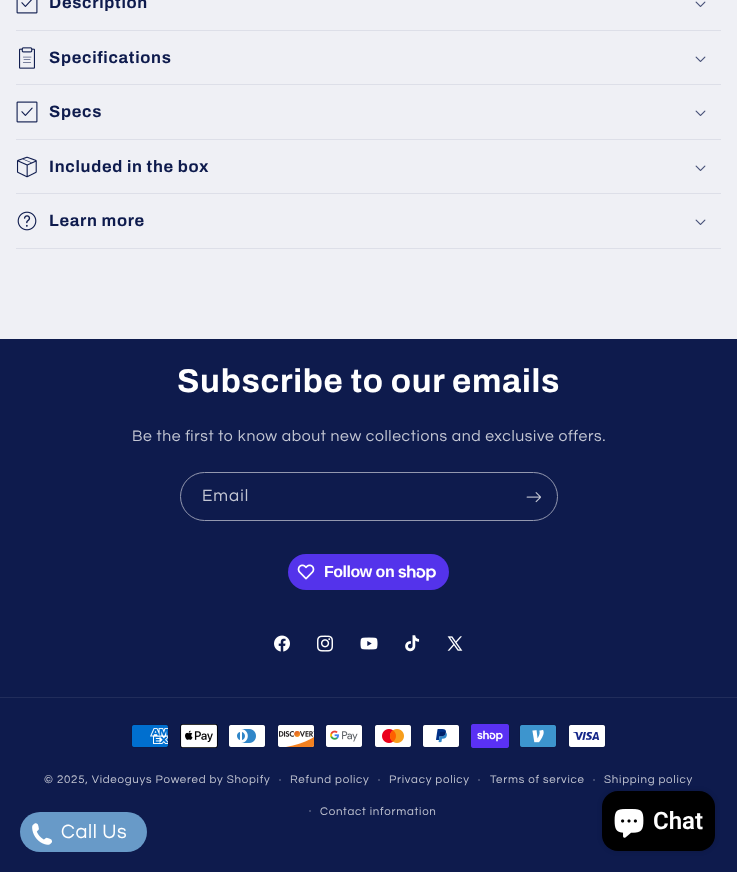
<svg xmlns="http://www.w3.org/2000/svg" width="737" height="872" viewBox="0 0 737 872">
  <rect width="100%" height="100%" fill="rgb(239,240,245)"/>
  <rect x="16" y="30" width="705" height="1" fill="rgb(221,223,232)"/>
  <image x="16" y="0" width="22" height="14" href="pic1.png"/>
  <text x="49" y="8" font-family="Archivo" font-size="16.5" font-weight="bold" letter-spacing="0.7" fill="rgb(14,27,77)">Description</text>
  <image x="695" y="1" width="11" height="6" href="pic2.png"/>
  <rect x="16" y="84" width="705" height="1" fill="rgb(221,223,232)"/>
  <image x="19" y="47" width="16" height="22" href="pic3.png"/>
  <text x="49" y="63" font-family="Archivo" font-size="16.5" font-weight="bold" letter-spacing="0.7" fill="rgb(14,27,77)">Specifications</text>
  <image x="695" y="56" width="11" height="6" href="pic2.png"/>
  <rect x="16" y="139" width="705" height="1" fill="rgb(221,223,232)"/>
  <image x="16" y="101" width="22" height="22" href="pic4.png"/>
  <text x="49" y="117" font-family="Archivo" font-size="16.5" font-weight="bold" letter-spacing="0.7" fill="rgb(14,27,77)">Specs</text>
  <image x="695" y="110" width="11" height="6" href="pic2.png"/>
  <rect x="16" y="193" width="705" height="1" fill="rgb(221,223,232)"/>
  <image x="16" y="156" width="21" height="22" href="pic5.png"/>
  <text x="49" y="172" font-family="Archivo" font-size="16.5" font-weight="bold" letter-spacing="0.7" fill="rgb(14,27,77)">Included in the box</text>
  <image x="695" y="165" width="11" height="6" href="pic2.png"/>
  <rect x="16" y="248" width="705" height="1" fill="rgb(221,223,232)"/>
  <image x="17" y="211" width="20" height="20" href="pic6.png"/>
  <text x="49" y="226" font-family="Archivo" font-size="16.5" font-weight="bold" letter-spacing="0.7" fill="rgb(14,27,77)">Learn more</text>
  <image x="695" y="219" width="11" height="6" href="pic2.png"/>
  <rect x="0" y="339" width="737" height="533" fill="rgb(14,27,77)"/>
  <text x="177" y="392" font-family="Archivo" font-size="33" font-weight="bold" letter-spacing="0.7" fill="rgb(255,255,255)">Subscribe to our emails</text>
  <text x="132" y="441" font-family="Questrial" font-size="15.75" letter-spacing="0.63" fill="rgb(195,198,211)">Be the first to know about new collections and exclusive offers.</text>
  <rect x="180.5" y="472.5" width="377" height="48" rx="24" fill="none" stroke="rgb(147,152,175)"/>
  <text x="202" y="501" font-family="Questrial" font-size="17" letter-spacing="1" fill="rgb(195,198,211)">Email</text>
  <image x="526" y="492" width="15" height="11" href="pic7.png"/>
  <rect x="288" y="554" width="161" height="36" rx="18" fill="rgb(84,51,235)"/>
  <image x="297" y="564" width="18" height="16" href="pic8.png"/>
  <text x="324" y="577" font-family="Liberation Sans" font-size="16" font-weight="bold" letter-spacing="-0.5" fill="rgb(255,255,255)">Follow on</text>
  <image x="398" y="565" width="38" height="16" href="pic9.png"/>
  <image x="274" y="635" width="16" height="17" href="pic10.png"/>
  <image x="317" y="635" width="16" height="17" href="pic11.png"/>
  <image x="360" y="637" width="18" height="13" href="pic12.png"/>
  <image x="405" y="635" width="15" height="17" href="pic13.png"/>
  <image x="447" y="636" width="16" height="15" href="pic14.png"/>
  <rect x="0" y="697" width="737" height="1" fill="rgb(33,45,91)"/>
  <image x="131" y="724" width="38" height="24" href="pic15.png"/>
  <image x="180" y="724" width="38" height="24" href="pic16.png"/>
  <image x="228" y="724" width="38" height="24" href="pic17.png"/>
  <image x="277" y="724" width="38" height="24" href="pic18.png"/>
  <image x="325" y="724" width="38" height="24" href="pic19.png"/>
  <image x="374" y="724" width="38" height="24" href="pic20.png"/>
  <image x="422" y="724" width="38" height="24" href="pic21.png"/>
  <image x="471" y="724" width="38" height="24" href="pic22.png"/>
  <image x="519" y="724" width="38" height="24" href="pic23.png"/>
  <image x="568" y="724" width="38" height="24" href="pic24.png"/>
  <text x="44" y="783" font-family="Questrial" font-size="11.5" letter-spacing="0.75" fill="rgb(195,198,211)">© 2025, Videoguys Powered by Shopify</text>
  <text x="279" y="783" font-family="Questrial" font-size="10" letter-spacing="0.75" fill="rgb(195,198,211)">·</text>
  <text x="290" y="783" font-family="Questrial" font-size="11.5" letter-spacing="0.75" fill="rgb(195,198,211)">Refund policy</text>
  <text x="378" y="783" font-family="Questrial" font-size="10" letter-spacing="0.75" fill="rgb(195,198,211)">·</text>
  <text x="389" y="783" font-family="Questrial" font-size="11.5" letter-spacing="0.75" fill="rgb(195,198,211)">Privacy policy</text>
  <text x="478" y="783" font-family="Questrial" font-size="10" letter-spacing="0.75" fill="rgb(195,198,211)">·</text>
  <text x="490" y="783" font-family="Questrial" font-size="11.5" letter-spacing="0.75" fill="rgb(195,198,211)">Terms of service</text>
  <text x="593" y="783" font-family="Questrial" font-size="10" letter-spacing="0.75" fill="rgb(195,198,211)">·</text>
  <text x="604" y="783" font-family="Questrial" font-size="11.5" letter-spacing="0.75" fill="rgb(195,198,211)">Shipping policy</text>
  <text x="309" y="814" font-family="Questrial" font-size="10" letter-spacing="0.75" fill="rgb(195,198,211)">·</text>
  <text x="320" y="815" font-family="Questrial" font-size="11.5" letter-spacing="0.75" fill="rgb(195,198,211)">Contact information</text>
  <rect x="602" y="791" width="113" height="60" rx="16" fill="rgba(0,0,0,0.15)" filter="blur(2.5px)"/>
  <rect x="602" y="791" width="113" height="60" rx="16" fill="rgb(0,0,0)"/>
  <image x="614" y="809" width="30" height="29" href="pic25.png"/>
  <text x="653" y="829" font-family="Roboto" font-size="24" font-weight="600" fill="rgb(255,255,255)">Chat</text>
  <rect x="20" y="812" width="127" height="40" rx="20" fill="rgb(104,154,200)"/>
  <image x="32" y="823" width="20" height="22" href="pic26.png"/>
  <text x="61" y="838" font-family="Questrial" font-size="20" letter-spacing="0.63" fill="rgb(255,255,255)">Call Us</text>
</svg>
